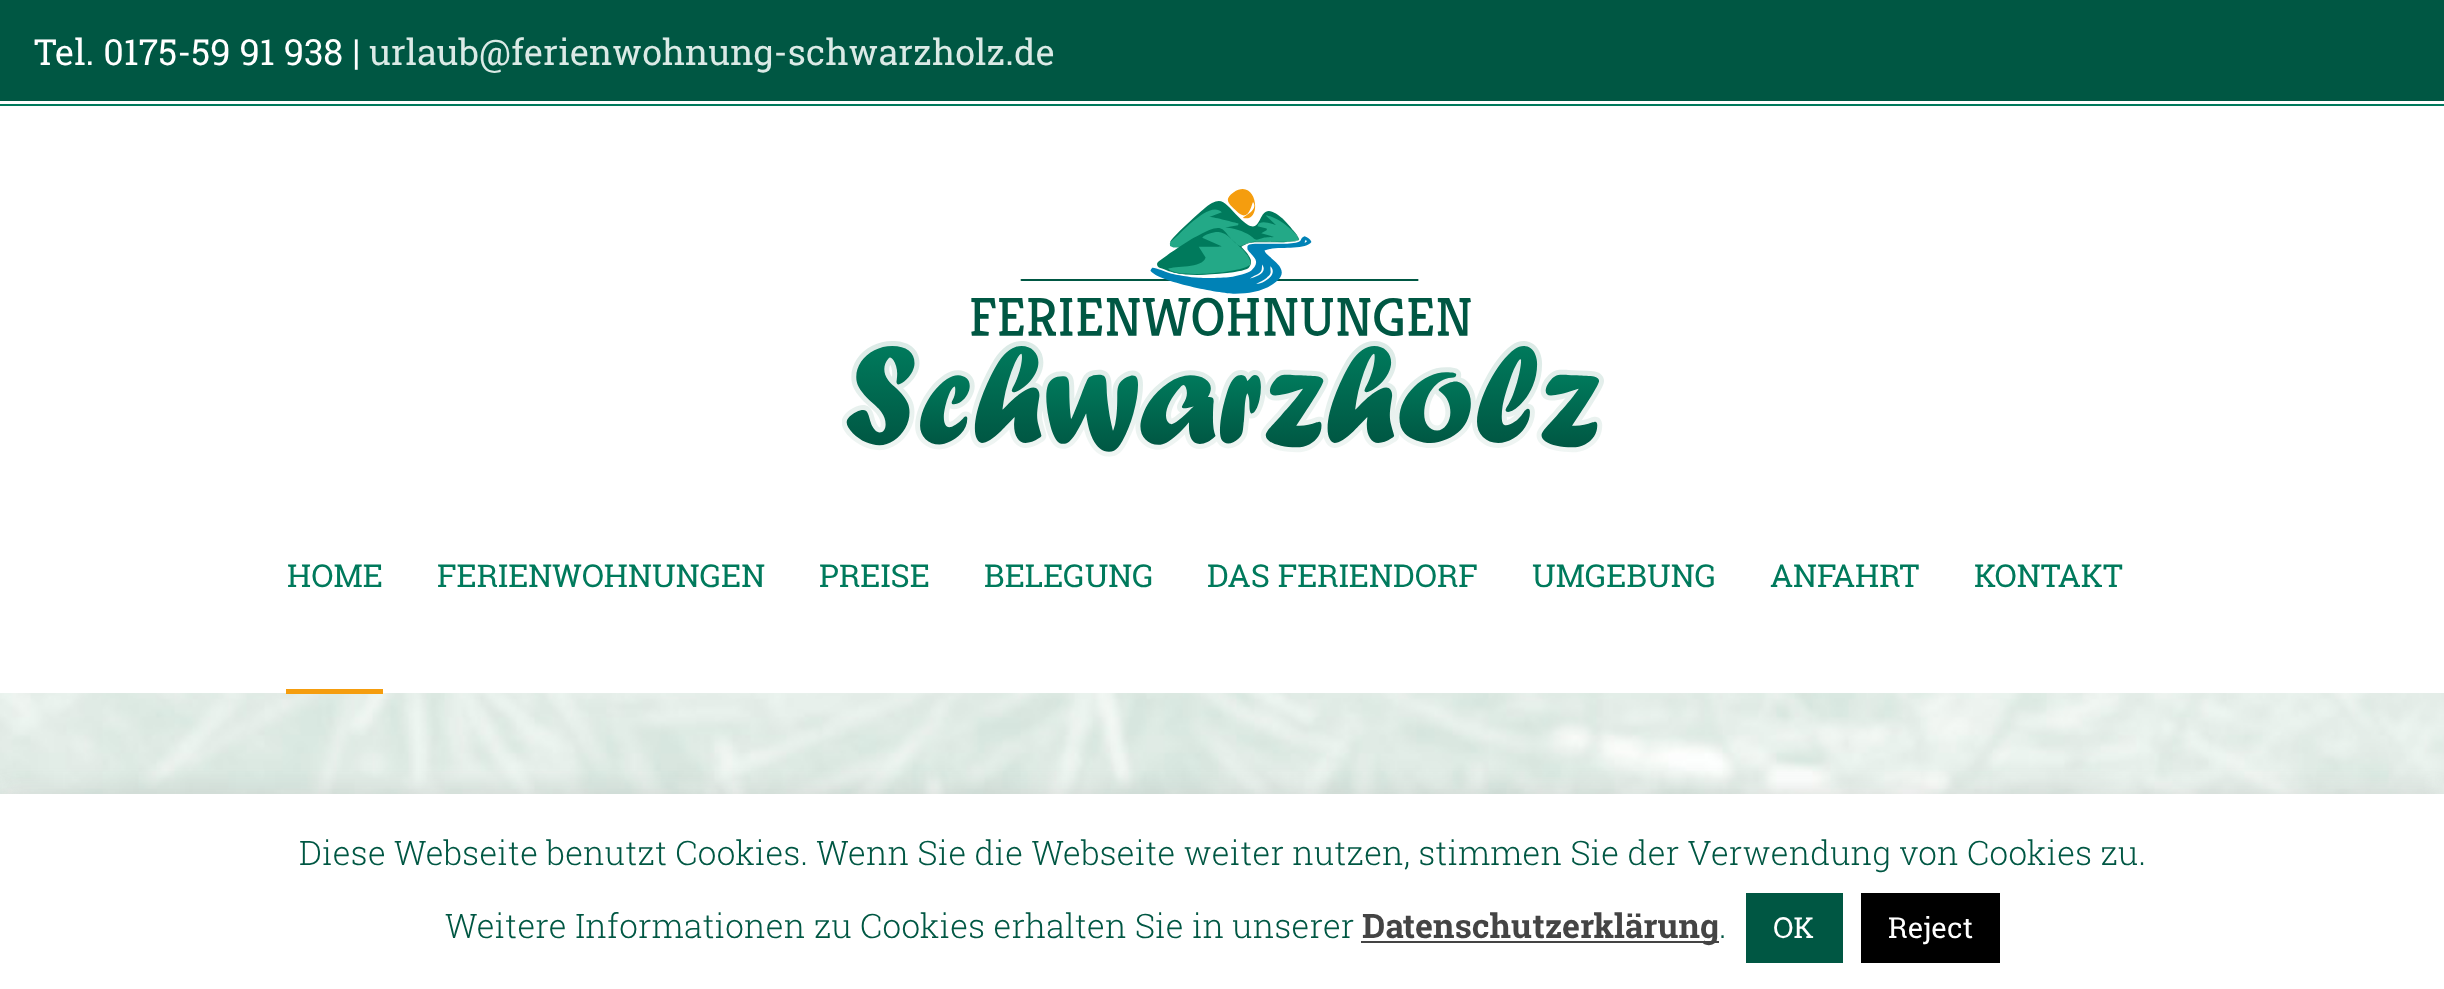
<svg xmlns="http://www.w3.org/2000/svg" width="2444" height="989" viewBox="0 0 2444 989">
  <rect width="100%" height="100%" fill="rgb(255,255,255)"/>
  <rect x="0" y="0" width="2444" height="101" fill="rgb(0,87,67)"/>
  <text x="34" y="65" font-family="Roboto Slab" font-size="36" fill="rgb(255,255,255)">Tel. 0175-59 91 938 |</text>
  <text x="369" y="65" font-family="Roboto Slab" font-size="36" fill="rgb(219,234,230)">urlaub@ferienwohnung-schwarzholz.de</text>
  <rect x="0" y="104" width="2444" height="2" fill="rgb(0,122,92)"/>
  <image x="842" y="189" width="762" height="268" href="pic1.png"/>
  <g font-family="Roboto Slab" font-size="31.5" fill="rgb(0,122,92)">
    <text x="287" y="587">HOME</text>
    <text x="437" y="587">FERIENWOHNUNGEN</text>
    <text x="819" y="587">PREISE</text>
    <text x="984" y="587">BELEGUNG</text>
    <text x="1207" y="587">DAS FERIENDORF</text>
    <text x="1532" y="587">UMGEBUNG</text>
    <text x="1770" y="587">ANFAHRT</text>
    <text x="1974" y="587">KONTAKT</text>
  </g>
  <image x="0" y="693" width="2444" height="101" href="pic2.png"/>
  <rect x="286" y="689" width="97" height="5" fill="rgb(245,157,14)"/>
  <rect x="0" y="792" width="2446" height="196" fill="rgba(172,171,171,0.3)" filter="blur(11px)"/>
  <rect x="0" y="794" width="2444" height="195" fill="rgb(255,255,255)"/>
  <g font-family="Roboto Slab" font-size="33.75" font-weight="300" fill="rgb(0,87,67)">
    <text x="299" y="865">Diese Webseite benutzt Cookies. Wenn Sie die Webseite weiter nutzen, stimmen Sie der Verwendung von Cookies zu.</text>
    <text x="445" y="938">Weitere Informationen zu Cookies erhalten Sie in unserer</text>
  </g>
  <rect x="1361" y="941" width="358" height="2" fill="rgb(68,68,68)"/>
  <text x="1362" y="938" font-family="Roboto Slab" font-size="33.75" font-weight="bold" fill="rgb(68,68,68)">Datenschutzerklärung</text>
  <text x="1719" y="938" font-family="Roboto Slab" font-size="33.75" font-weight="300" fill="rgb(0,87,67)">.</text>
  <rect x="1746" y="893" width="97" height="70" fill="rgb(0,87,67)"/>
  <text x="1773" y="938" font-family="Roboto Slab" font-size="29" fill="rgb(255,255,255)">OK</text>
  <rect x="1861" y="893" width="139" height="70" fill="rgb(0,0,0)"/>
  <text x="1888" y="938" font-family="Roboto Slab" font-size="29" fill="rgb(255,255,255)">Reject</text>
</svg>
